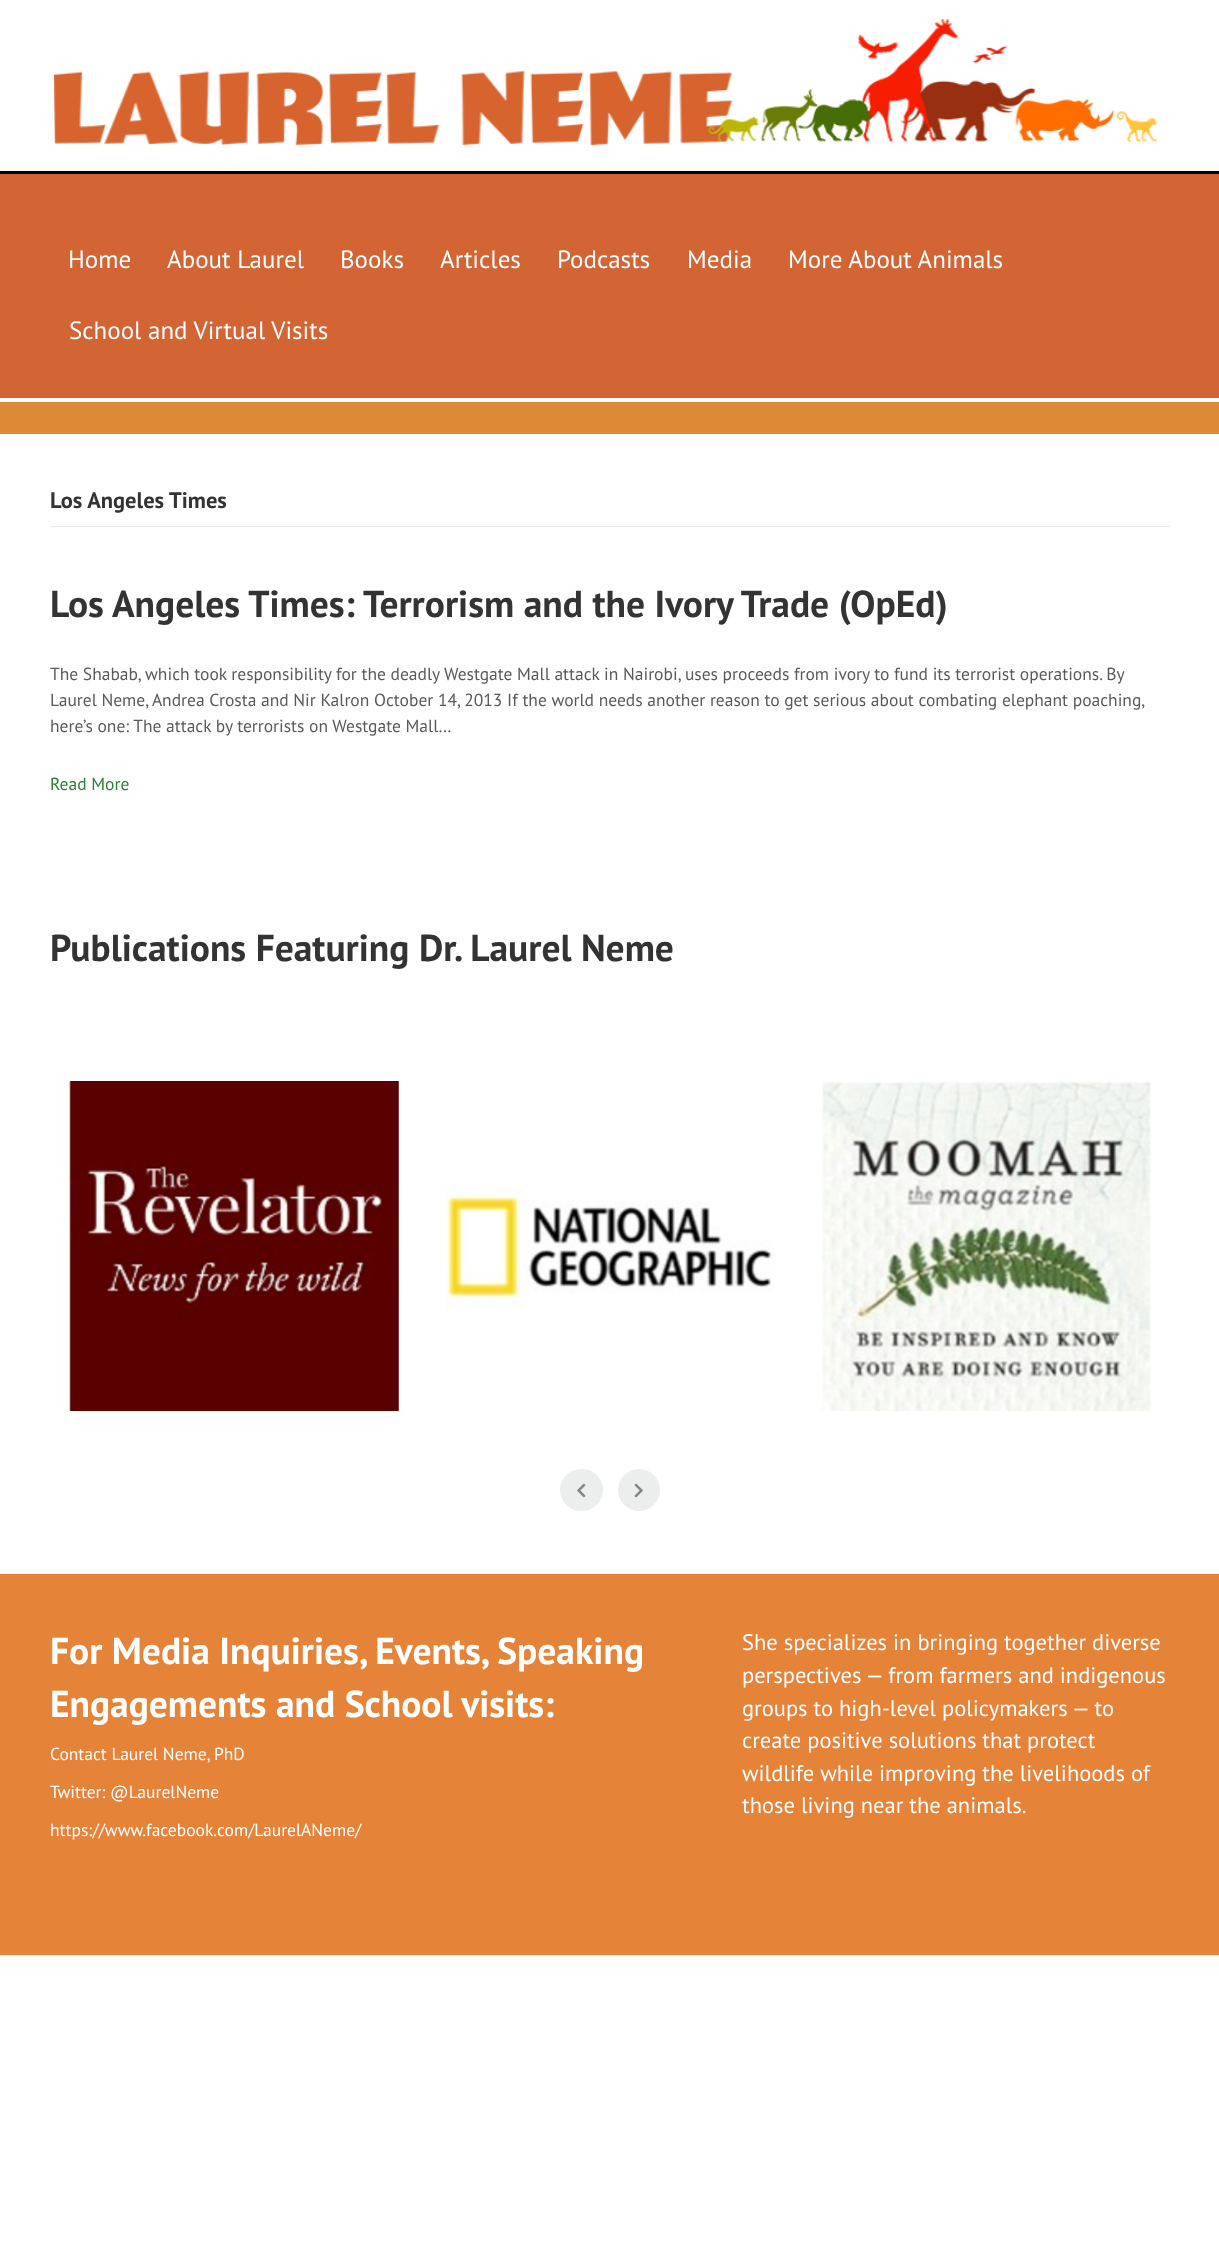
<svg xmlns="http://www.w3.org/2000/svg" width="1219" height="2263" viewBox="0 0 1219 2263">
  <rect width="100%" height="100%" fill="rgb(255,255,255)"/>
  <image x="54" y="19" width="1104" height="127" href="pic1.png"/>
  <rect x="0" y="174" width="1219" height="224" fill="rgb(211,100,52)"/>
  <rect x="0" y="171" width="1219" height="3" fill="rgb(0,0,0)"/>
  <g font-family="PT Sans" font-size="25" fill="rgb(255,255,255)">
    <text x="68" y="268">Home</text>
    <text x="167" y="268">About Laurel</text>
    <text x="340" y="268">Books</text>
    <text x="440" y="268">Articles</text>
    <text x="557" y="268">Podcasts</text>
    <text x="687" y="268">Media</text>
    <text x="788" y="268">More About Animals</text>
    <text x="69" y="339">School and Virtual Visits</text>
  </g>
  <rect x="0" y="402" width="1219" height="32" fill="rgb(219,139,54)"/>
  <rect x="50" y="526" width="1120" height="1" fill="rgb(230,230,230)"/>
  <text x="50" y="508" font-family="PT Sans" font-size="22.5" font-weight="bold" fill="rgb(51,51,51)">Los Angeles Times</text>
  <text x="50" y="617" font-family="PT Sans" font-size="37.5" font-weight="bold" fill="rgb(51,51,51)">Los Angeles Times: Terrorism and the Ivory Trade (OpEd)</text>
  <g font-family="PT Sans" font-size="17.5" fill="rgb(89,89,89)">
    <text>
      <tspan x="50" y="680">The Shabab, which took responsibility for the deadly Westgate Mall attack in Nairobi, uses proceeds from ivory to fund its terrorist operations. By</tspan>
      <tspan x="50" y="706">Laurel Neme, Andrea Crosta and Nir Kalron October 14, 2013 If the world needs another reason to get serious about combating elephant poaching,</tspan>
      <tspan x="50" y="732">here’s one: The attack by terrorists on Westgate Mall…</tspan>
    </text>
  </g>
  <text x="50" y="790" font-family="PT Sans" font-size="17.5" fill="rgb(39,127,55)">Read More</text>
  <text x="50" y="961" font-family="PT Sans" font-size="37.5" font-weight="bold" fill="rgb(51,51,51)">Publications Featuring Dr. Laurel Neme</text>
  <image x="69" y="1081" width="330" height="330" href="pic2.png"/>
  <image x="445" y="1187" width="330" height="125" href="pic3.png"/>
  <image x="821" y="1081" width="330" height="330" href="pic4.png"/>
  <rect x="560" y="1469" width="43" height="42" rx="21" fill="rgb(236,237,237)"/>
  <image x="577" y="1483" width="9" height="15" href="pic5.png"/>
  <circle cx="639" cy="1490" r="21" fill="rgb(236,237,237)"/>
  <image x="634" y="1483" width="9" height="15" href="pic6.png"/>
  <rect x="0" y="1574" width="1219" height="381" fill="rgb(229,131,57)"/>
  <g font-family="PT Sans" font-size="37.5" font-weight="bold" fill="rgb(255,255,255)">
    <text>
      <tspan x="50" y="1664">For Media Inquiries, Events, Speaking</tspan>
      <tspan x="50" y="1717">Engagements and School visits:</tspan>
    </text>
  </g>
  <g font-family="PT Sans" font-size="17.5" fill="rgb(255,255,255)">
    <text x="50" y="1760">Contact Laurel Neme, PhD</text>
    <text x="50" y="1798">Twitter: @LaurelNeme</text>
    <text x="50" y="1836">https://www.facebook.com/LaurelANeme/</text>
  </g>
  <g font-family="PT Sans" font-size="22.5" fill="rgb(255,255,255)">
    <text>
      <tspan x="742" y="1650">She specializes in bringing together diverse</tspan>
      <tspan x="742" y="1683">perspectives — from farmers and indigenous</tspan>
      <tspan x="742" y="1716">groups to high-level policymakers — to</tspan>
      <tspan x="742" y="1748">create positive solutions that protect</tspan>
      <tspan x="742" y="1781">wildlife while improving the livelihoods of</tspan>
      <tspan x="742" y="1813">those living near the animals.</tspan>
    </text>
  </g>
</svg>
